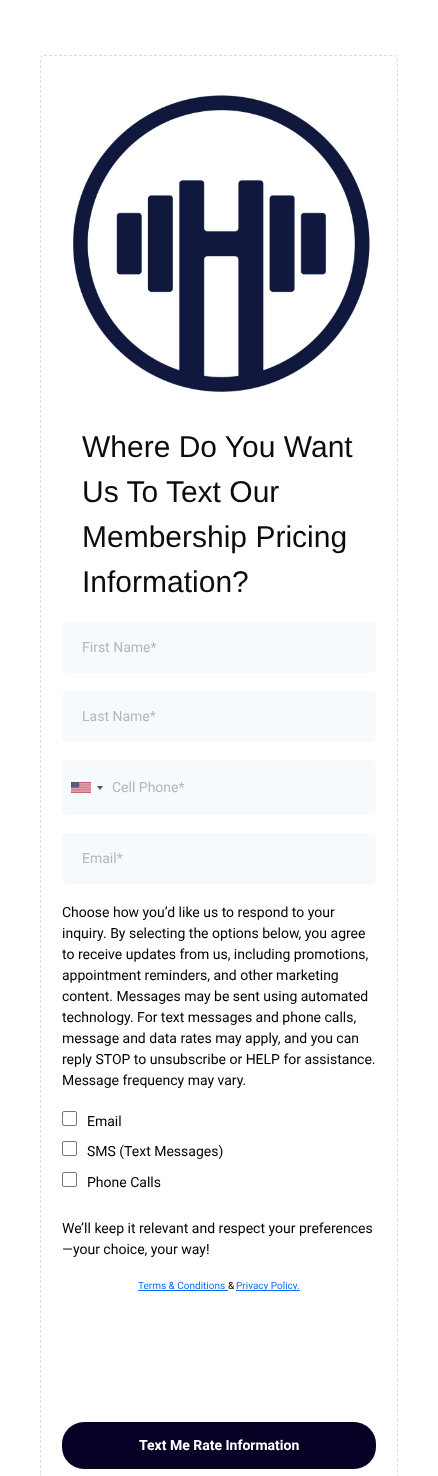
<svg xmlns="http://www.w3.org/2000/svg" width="438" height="1476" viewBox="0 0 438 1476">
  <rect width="100%" height="100%" fill="rgb(255,255,255)"/>
  <path d="M44 55.5H394C396 55.5 397.5 57 397.5 59V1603C397.5 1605 396 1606.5 394 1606.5H44C42 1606.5 40.5 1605 40.5 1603V59C40.5 57 42 55.5 44 55.5Z" fill="none" stroke="rgb(205,224,236)" stroke-dasharray="3 2"/>
  <image x="73" y="95" width="297" height="297" href="pic1.png"/>
  <g font-family="Liberation Sans" font-size="30" fill="rgb(12,12,12)">
    <text>
      <tspan x="82" y="457">Where Do You Want</tspan>
      <tspan x="82" y="502">Us To Text Our</tspan>
      <tspan x="82" y="547">Membership Pricing</tspan>
      <tspan x="82" y="592">Information?</tspan>
    </text>
  </g>
  <rect x="62" y="622" width="314" height="51" rx="5" fill="rgb(247,250,252)"/>
  <text x="82" y="652" font-family="Roboto" font-size="14" fill="rgb(175,184,188)">First Name*</text>
  <rect x="62" y="691" width="314" height="51" rx="5" fill="rgb(247,250,252)"/>
  <text x="82" y="721" font-family="Roboto" font-size="14" fill="rgb(175,184,188)">Last Name*</text>
  <rect x="62" y="760" width="314" height="55" rx="5" fill="rgb(247,250,252)"/>
  <rect x="71" y="782" width="20" height="11" fill="rgb(136,136,136)" filter="blur(0.5px)"/>
  <image x="71" y="782" width="20" height="11" href="pic2.png"/>
  <path d="M97 786H103L100 790Z" fill="rgb(85,85,85)"/>
  <text x="112" y="792" font-family="Roboto" font-size="14" fill="rgb(175,184,188)">Cell Phone*</text>
  <rect x="62" y="833" width="314" height="51" rx="5" fill="rgb(247,250,252)"/>
  <text x="82" y="863" font-family="Roboto" font-size="14" fill="rgb(175,184,188)">Email*</text>
  <g font-family="Roboto" font-size="14" fill="rgb(0,0,0)">
    <text>
      <tspan x="62" y="917">Choose how you’d like us to respond to your</tspan>
      <tspan x="62" y="938">inquiry. By selecting the options below, you agree</tspan>
      <tspan x="62" y="959">to receive updates from us, including promotions,</tspan>
      <tspan x="62" y="980">appointment reminders, and other marketing</tspan>
      <tspan x="62" y="1001">content. Messages may be sent using automated</tspan>
      <tspan x="62" y="1022">technology. For text messages and phone calls,</tspan>
      <tspan x="62" y="1043">message and data rates may apply, and you can</tspan>
      <tspan x="62" y="1064">reply STOP to unsubscribe or HELP for assistance.</tspan>
      <tspan x="62" y="1085">Message frequency may vary.</tspan>
    </text>
  </g>
  <rect x="62.5" y="1111.5" width="14" height="14" rx="1.5" fill="none" stroke="rgb(118,118,118)"/>
  <text x="87" y="1126" font-family="Roboto" font-size="14" fill="rgb(0,0,0)">Email</text>
  <rect x="62.5" y="1141.5" width="14" height="14" rx="1.5" fill="none" stroke="rgb(118,118,118)"/>
  <text x="87" y="1156" font-family="Roboto" font-size="14" fill="rgb(0,0,0)">SMS (Text Messages)</text>
  <rect x="62.5" y="1172.5" width="14" height="14" rx="1.5" fill="none" stroke="rgb(118,118,118)"/>
  <g font-family="Roboto" font-size="14" fill="rgb(0,0,0)">
    <text x="87" y="1187">Phone Calls</text>
    <text>
      <tspan x="62" y="1233">We’ll keep it relevant and respect your preferences</tspan>
      <tspan x="62" y="1254">—your choice, your way!</tspan>
    </text>
  </g>
  <text x="138" y="1289" font-family="Roboto" font-size="10" fill="rgb(13,110,253)">Terms &amp; Conditions</text>
  <rect x="138" y="1290" width="90" height="1" fill="rgb(13,110,253)"/>
  <text x="228" y="1289" font-family="Roboto" font-size="10" fill="rgb(0,0,0)">&amp;</text>
  <rect x="236" y="1290" width="64" height="1" fill="rgb(13,110,253)"/>
  <text x="236" y="1289" font-family="Roboto" font-size="10" fill="rgb(13,110,253)">Privacy Policy.</text>
  <rect x="62" y="1422" width="314" height="47" rx="22" fill="rgb(7,1,38)"/>
  <text x="139" y="1450" font-family="Roboto" font-size="14" font-weight="bold" fill="rgb(255,255,255)">Text Me Rate Information</text>
</svg>
